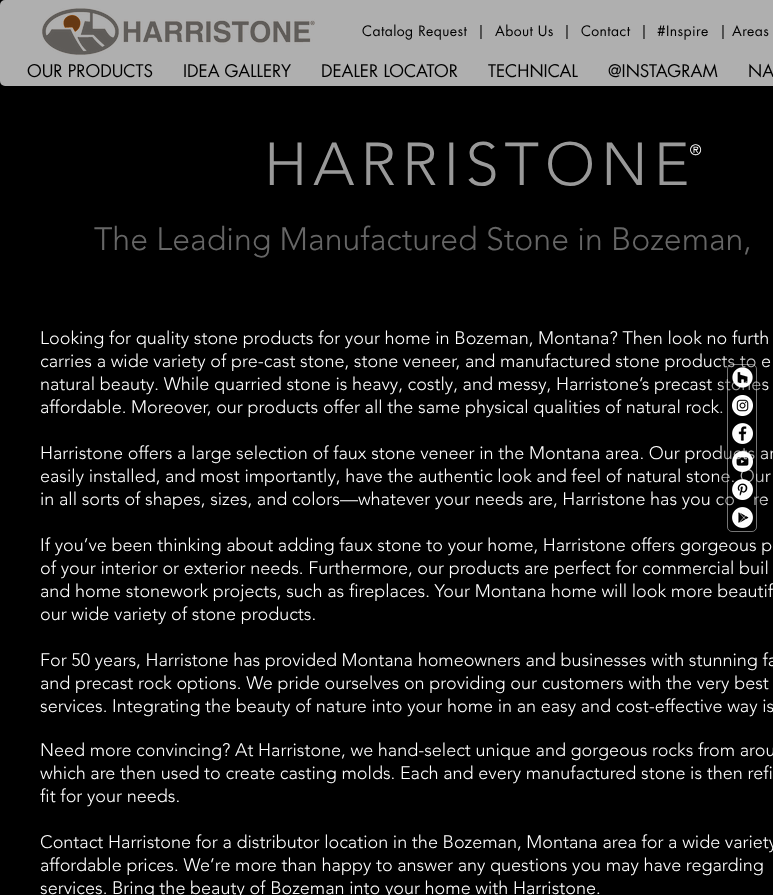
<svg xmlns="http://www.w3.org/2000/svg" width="773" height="895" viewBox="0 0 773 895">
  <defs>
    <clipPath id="clip1"><path d="M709 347H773V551H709ZM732 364H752C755 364 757 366 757 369V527C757 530 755 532 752 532H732C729 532 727 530 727 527V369C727 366 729 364 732 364Z" clip-rule="evenodd"/></clipPath>
  </defs>
  <rect width="100%" height="100%" fill="rgb(0,0,0)"/>
  <rect x="0" y="0" width="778" height="86" rx="5" fill="rgb(175,175,175)"/>
  <image x="42" y="8" width="273" height="47" href="pic1.png"/>
  <g font-family="futura" font-size="14" letter-spacing="0.4" fill="rgb(0,0,0)">
    <text x="362" y="36">Catalog Request</text>
    <text x="477" y="36">|</text>
    <text x="495" y="36">About Us</text>
    <text x="563" y="36">|</text>
    <text x="581" y="36">Contact</text>
    <text x="640" y="36">|</text>
    <text x="657" y="36">#Inspire</text>
    <text x="719" y="36">| Areas</text>
  </g>
  <g font-family="futura" font-size="17" fill="rgb(0,0,0)">
    <text x="27" y="77">OUR PRODUCTS</text>
    <text x="183" y="77">IDEA GALLERY</text>
    <text x="321" y="77">DEALER LOCATOR</text>
    <text x="488" y="77">TECHNICAL</text>
    <text x="608" y="77">@INSTAGRAM</text>
    <text x="748" y="77">NA</text>
  </g>
  <text x="264" y="185" font-family="'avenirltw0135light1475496'" font-size="60" font-weight="300" letter-spacing="6" fill="rgb(153,153,153)">HARRISTONE</text>
  <text x="690" y="155" font-family="futura" font-size="14" fill="rgb(255,255,255)">®</text>
  <text x="94" y="250" font-family="'avenirltw0135light1475496'" font-size="32" font-weight="300" fill="rgb(102,102,102)">The Leading Manufactured Stone in Bozeman,</text>
  <g font-family="'avenirltw0135light1475496'" font-size="18" font-weight="300" fill="rgb(255,255,255)">
    <text>
      <tspan x="40" y="344">Looking for quality stone products for your home in Bozeman, Montana? Then look no furth</tspan>
      <tspan x="40" y="367">carries a wide variety of pre-cast stone, stone veneer, and manufactured stone products to e</tspan>
      <tspan x="40" y="390">natural beauty. While quarried stone is heavy, costly, and messy, Harristone’s precast stones</tspan>
      <tspan x="40" y="413">affordable. Moreover, our products offer all the same physical qualities of natural rock.</tspan>
    </text>
    <text>
      <tspan x="40" y="459">Harristone offers a large selection of faux stone veneer in the Montana area. Our products ar</tspan>
      <tspan x="40" y="482">easily installed, and most importantly, have the authentic look and feel of natural stone. Our</tspan>
      <tspan x="40" y="505">in all sorts of shapes, sizes, and colors—whatever your needs are, Harristone has you co</tspan>
    </text>
    <text x="753" y="505">re</text>
    <text>
      <tspan x="40" y="551">If you’ve been thinking about adding faux stone to your home, Harristone offers gorgeous p</tspan>
      <tspan x="40" y="574">of your interior or exterior needs. Furthermore, our products are perfect for commercial buil</tspan>
      <tspan x="40" y="597">and home stonework projects, such as fireplaces. Your Montana home will look more beautif</tspan>
      <tspan x="40" y="620">our wide variety of stone products.</tspan>
    </text>
    <text>
      <tspan x="40" y="666">For 50 years, Harristone has provided Montana homeowners and businesses with stunning fa</tspan>
      <tspan x="40" y="689">and precast rock options. We pride ourselves on providing our customers with the very best</tspan>
      <tspan x="40" y="712">services. Integrating the beauty of nature into your home in an easy and cost-effective way is</tspan>
    </text>
    <text>
      <tspan x="40" y="756">Need more convincing? At Harristone, we hand-select unique and gorgeous rocks from arou</tspan>
      <tspan x="40" y="779">which are then used to create casting molds. Each and every manufactured stone is then refi</tspan>
      <tspan x="40" y="802">fit for your needs.</tspan>
    </text>
    <text>
      <tspan x="40" y="848">Contact Harristone for a distributor location in the Bozeman, Montana area for a wide variety</tspan>
      <tspan x="40" y="871">affordable prices. We’re more than happy to answer any questions you may have regarding</tspan>
      <tspan x="40" y="894">services. Bring the beauty of Bozeman into your home with Harristone.</tspan>
    </text>
  </g>
  <g clip-path="url(#clip1)">
    <rect x="724" y="362" width="36" height="174" rx="8" fill="rgba(0,0,0,0.6)" filter="blur(4.5px)"/>
  </g>
  <rect x="727" y="364" width="30" height="168" rx="5" fill="rgba(0,0,0,0.31)"/>
  <rect x="727" y="379" width="30" height="11" fill="rgba(0,0,0,0.08)"/>
  <rect x="727.5" y="364.5" width="29" height="167" rx="4.5" fill="none" stroke="rgba(255,255,255,0.46)"/>
  <image x="732" y="367" width="21" height="21" href="pic2.png"/>
  <image x="732" y="395" width="21" height="21" href="pic3.png"/>
  <image x="732" y="423" width="21" height="21" href="pic4.png"/>
  <image x="732" y="451" width="21" height="21" href="pic5.png"/>
  <image x="732" y="479" width="21" height="21" href="pic6.png"/>
  <image x="732" y="507" width="21" height="21" href="pic7.png"/>
</svg>
